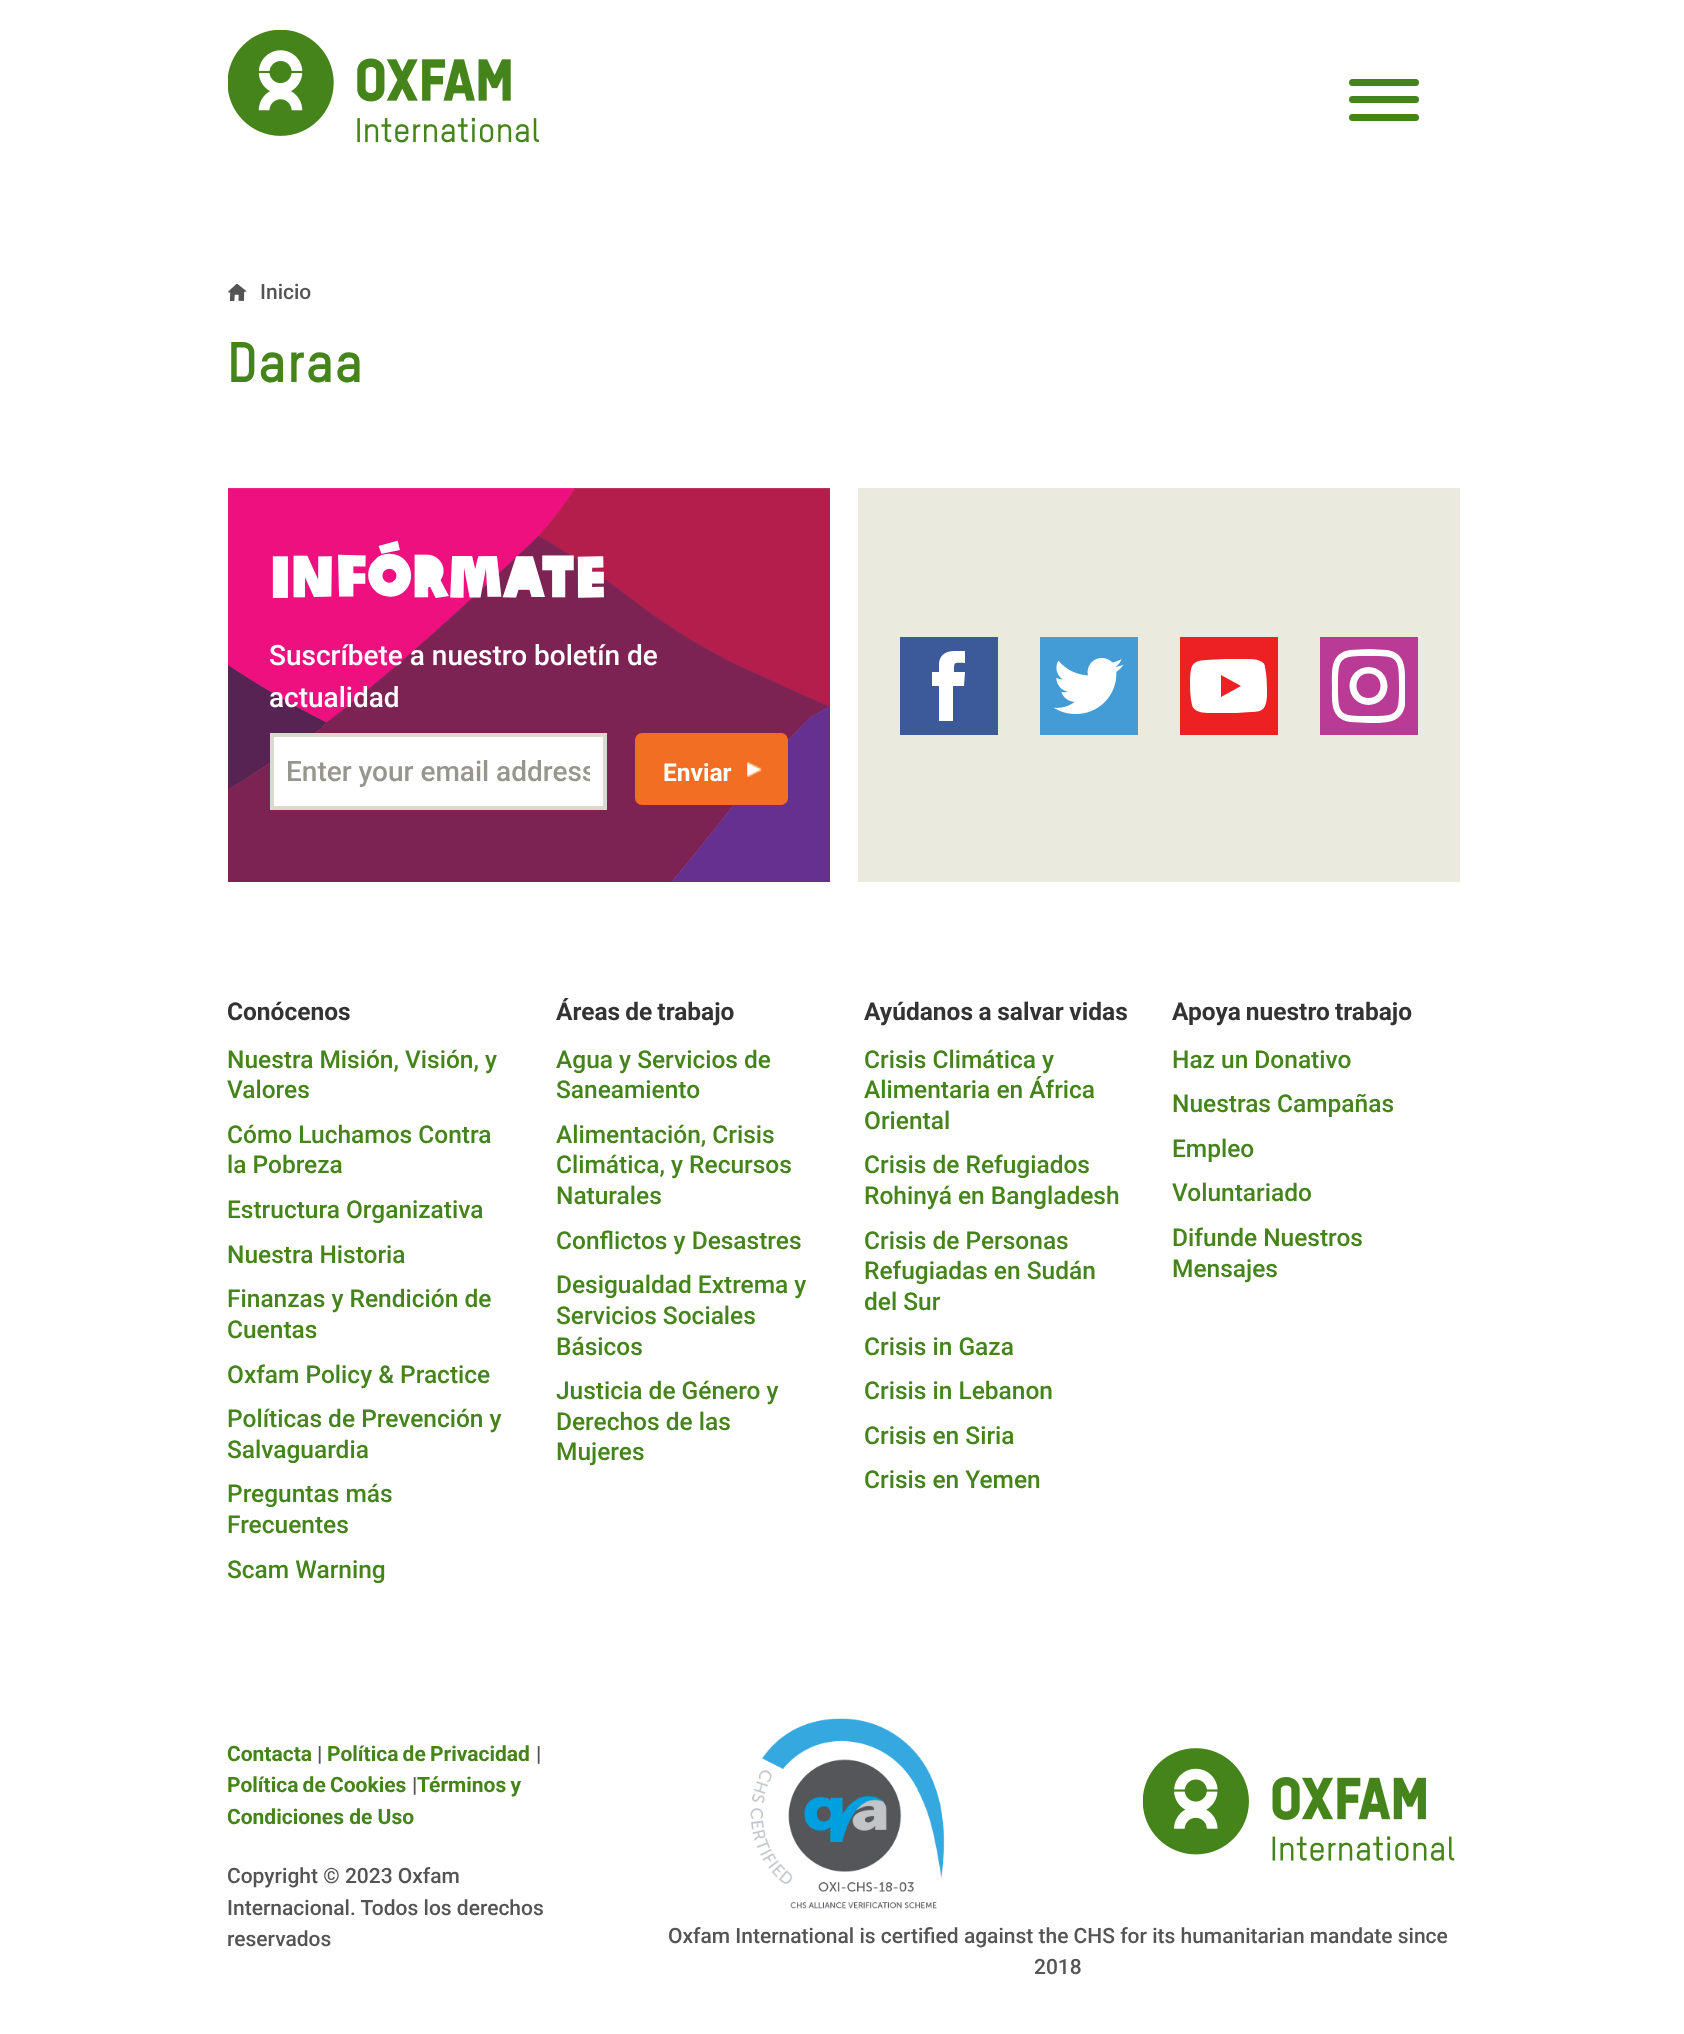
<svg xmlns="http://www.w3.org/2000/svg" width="1684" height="2034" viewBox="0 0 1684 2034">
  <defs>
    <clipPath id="clip1"><rect x="287" y="754" width="303" height="34"/></clipPath>
    <clipPath id="clip2"><rect x="914" y="651" width="70" height="70"/></clipPath>
  </defs>
  <rect width="100%" height="100%" fill="rgb(255,255,255)"/>
  <image x="228" y="30" width="311" height="113" href="pic1.png"/>
  <rect x="1349" y="114" width="70" height="7" rx="3.5" fill="rgb(68,132,26)"/>
  <rect x="1349" y="79" width="70" height="7" rx="3.5" fill="rgb(68,132,26)"/>
  <rect x="1349" y="96" width="70" height="7" rx="3.5" fill="rgb(68,132,26)"/>
  <image x="228" y="284" width="19" height="17" href="pic2.png"/>
  <text x="260" y="299" font-family="Roboto" font-size="21" font-weight="500" fill="rgb(84,84,84)">Inicio</text>
  <text x="227" y="382" font-family="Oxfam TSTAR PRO" font-size="56" font-weight="bold" fill="rgb(68,132,26)">Daraa</text>
  <image x="228" y="488" width="602" height="394" href="pic3.png"/>
  <text x="269" y="597" font-family="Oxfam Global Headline" font-size="56" font-weight="bold" fill="rgb(255,255,255)">Infórmate</text>
  <g font-family="Roboto" font-size="28" font-weight="500" fill="rgb(255,255,255)">
    <text>
      <tspan x="269" y="665">Suscríbete a nuestro boletín de</tspan>
      <tspan x="269" y="707">actualidad</tspan>
    </text>
  </g>
  <rect x="272" y="735" width="333" height="73" fill="rgb(255,255,255)" stroke="rgb(217,217,206)" stroke-width="4"/>
  <g clip-path="url(#clip1)">
    <text x="286" y="781" font-family="Roboto" font-size="28" font-weight="500" fill="rgb(150,150,143)">Enter your email address</text>
  </g>
  <rect x="635" y="733" width="153" height="72" rx="7" fill="rgb(241,110,34)"/>
  <image x="747" y="762" width="15" height="15" href="pic4.png"/>
  <text x="663" y="781" font-family="Roboto" font-size="24.5" font-weight="bold" fill="rgb(255,255,255)">Enviar</text>
  <rect x="858" y="488" width="602" height="394" fill="rgb(234,234,222)"/>
  <rect x="900" y="637" width="98" height="98" fill="rgb(60,90,154)"/>
  <g clip-path="url(#clip2)">
    <path d="M939 721H953V686H964L965 672H954C954 661 954 663 965 663V651C954 651 941 649 939 663V672H932V686H939Z" fill="rgb(255,255,255)" fill-rule="evenodd"/>
  </g>
  <rect x="1040" y="637" width="98" height="98" fill="rgb(67,156,214)"/>
  <image x="1054" y="658" width="70" height="56" href="pic5.png"/>
  <rect x="1180" y="637" width="98" height="98" fill="rgb(237,32,36)"/>
  <path d="M1265 667C1265 664 1263 662 1260 661C1256 659 1251 659 1246 659H1225L1206 660C1191 661 1191 666 1190 679C1190 687 1190 697 1192 705C1194 714 1208 713 1216 713H1236L1251 712C1264 712 1266 708 1267 696C1267 686 1267 677 1265 667ZM1221 697V675L1241 686Z" fill="rgb(255,255,255)"/>
  <rect x="1320" y="637" width="98" height="98" fill="rgb(185,59,150)"/>
  <path d="M1369 649L1387 650C1407 653 1405 671 1405 686V705C1402 724 1384 723 1369 723L1350 722C1330 719 1332 701 1332 686C1332 671 1330 653 1350 650ZM1369 656C1340 656 1338 657 1338 686C1338 715 1339 716 1369 716C1398 716 1399 715 1399 686C1399 657 1398 656 1369 656Z" fill="rgb(255,255,255)" fill-rule="evenodd"/>
  <path d="M1368.5 667C1379 667 1387.5 675.5 1387.5 686C1387.5 696.5 1379 705 1368.5 705C1358 705 1349.5 696.5 1349.5 686C1349.5 675.5 1358 667 1368.5 667ZM1368.5 698C1384.5 698 1384.5 673.5 1368.5 673.5C1352.5 673.5 1352.5 698 1368.5 698Z" fill="rgb(255,255,255)" fill-rule="evenodd"/>
  <text x="227" y="1020" font-family="Roboto" font-size="24.5" font-weight="bold" fill="rgb(51,51,51)">Conócenos</text>
  <g font-family="Roboto" font-size="24.5" font-weight="500" fill="rgb(68,132,26)">
    <text>
      <tspan x="227" y="1068">Nuestra Misión, Visión, y</tspan>
      <tspan x="227" y="1098">Valores</tspan>
      <tspan x="227" y="1143">Cómo Luchamos Contra</tspan>
      <tspan x="227" y="1173">la Pobreza</tspan>
      <tspan x="227" y="1218">Estructura Organizativa</tspan>
      <tspan x="227" y="1263">Nuestra Historia</tspan>
      <tspan x="227" y="1307">Finanzas y Rendición de</tspan>
      <tspan x="227" y="1338">Cuentas</tspan>
      <tspan x="227" y="1383">Oxfam Policy &amp; Practice</tspan>
      <tspan x="227" y="1427">Políticas de Prevención y</tspan>
      <tspan x="227" y="1458">Salvaguardia</tspan>
      <tspan x="227" y="1502">Preguntas más</tspan>
      <tspan x="227" y="1533">Frecuentes</tspan>
      <tspan x="227" y="1578">Scam Warning</tspan>
    </text>
  </g>
  <text x="556" y="1020" word-spacing="-1" font-family="Roboto" font-size="24.5" font-weight="bold" fill="rgb(51,51,51)">Áreas de trabajo</text>
  <g font-family="Roboto" font-size="24.5" font-weight="500" fill="rgb(68,132,26)">
    <text>
      <tspan x="556" y="1068">Agua y Servicios de</tspan>
      <tspan x="556" y="1098">Saneamiento</tspan>
      <tspan x="556" y="1143">Alimentación, Crisis</tspan>
      <tspan x="556" y="1173">Climática, y Recursos</tspan>
      <tspan x="556" y="1204">Naturales</tspan>
      <tspan x="556" y="1249">Conflictos y Desastres</tspan>
      <tspan x="556" y="1293">Desigualdad Extrema y</tspan>
      <tspan x="556" y="1324">Servicios Sociales</tspan>
      <tspan x="556" y="1355">Básicos</tspan>
      <tspan x="556" y="1399">Justicia de Género y</tspan>
      <tspan x="556" y="1430">Derechos de las</tspan>
      <tspan x="556" y="1460">Mujeres</tspan>
    </text>
  </g>
  <text x="864" y="1020" word-spacing="-0.5" font-family="Roboto" font-size="24.5" font-weight="bold" fill="rgb(51,51,51)">Ayúdanos a salvar vidas</text>
  <g font-family="Roboto" font-size="24.5" font-weight="500" fill="rgb(68,132,26)">
    <text>
      <tspan x="864" y="1068">Crisis Climática y</tspan>
      <tspan x="864" y="1098">Alimentaria en África</tspan>
      <tspan x="864" y="1129">Oriental</tspan>
      <tspan x="864" y="1173">Crisis de Refugiados</tspan>
      <tspan x="864" y="1204">Rohinyá en Bangladesh</tspan>
      <tspan x="864" y="1249">Crisis de Personas</tspan>
      <tspan x="864" y="1279">Refugiadas en Sudán</tspan>
      <tspan x="864" y="1310">del Sur</tspan>
      <tspan x="864" y="1355">Crisis in Gaza</tspan>
      <tspan x="864" y="1399">Crisis in Lebanon</tspan>
      <tspan x="864" y="1444">Crisis en Siria</tspan>
      <tspan x="864" y="1488">Crisis en Yemen</tspan>
    </text>
  </g>
  <text x="1172" y="1020" word-spacing="-1" font-family="Roboto" font-size="24.5" font-weight="bold" fill="rgb(51,51,51)">Apoya nuestro trabajo</text>
  <g font-family="Roboto" font-size="24.5" font-weight="500" fill="rgb(68,132,26)">
    <text>
      <tspan x="1172" y="1068">Haz un Donativo</tspan>
      <tspan x="1172" y="1112">Nuestras Campañas</tspan>
      <tspan x="1172" y="1157">Empleo</tspan>
      <tspan x="1172" y="1201">Voluntariado</tspan>
      <tspan x="1172" y="1246">Difunde Nuestros</tspan>
      <tspan x="1172" y="1277">Mensajes</tspan>
    </text>
  </g>
  <text x="227" y="1761" font-family="Roboto" font-size="21" font-weight="bold" fill="rgb(68,132,26)">Contacta</text>
  <text x="317" y="1761" font-family="Roboto" font-size="21" font-weight="bold" fill="rgb(84,84,84)">|</text>
  <text x="327" y="1761" word-spacing="-1" font-family="Roboto" font-size="21" font-weight="bold" fill="rgb(68,132,26)">Política de Privacidad</text>
  <text x="536" y="1761" font-family="Roboto" font-size="21" font-weight="bold" fill="rgb(84,84,84)">|</text>
  <text x="227" y="1792" word-spacing="-1" font-family="Roboto" font-size="21" font-weight="bold" fill="rgb(68,132,26)">Política de Cookies</text>
  <text x="412" y="1792" font-family="Roboto" font-size="21" font-weight="bold" fill="rgb(84,84,84)">|</text>
  <g font-family="Roboto" font-size="21" font-weight="bold" fill="rgb(68,132,26)">
    <text x="417" y="1792" word-spacing="-1">Términos y</text>
    <text x="227" y="1824">Condiciones de Uso</text>
  </g>
  <g font-family="Roboto" font-size="21" font-weight="500" fill="rgb(84,84,84)">
    <text>
      <tspan x="227" y="1883">Copyright © 2023 Oxfam</tspan>
      <tspan x="227" y="1915">Internacional. Todos los derechos</tspan>
      <tspan x="227" y="1946">reservados</tspan>
    </text>
  </g>
  <image x="750" y="1718" width="195" height="191" href="pic6.png"/>
  <image x="1143" y="1748" width="312" height="113" href="pic7.png"/>
  <g font-family="Roboto" font-size="21" font-weight="500" fill="rgb(84,84,84)">
    <text x="668" y="1943">Oxfam International is certified against the CHS for its humanitarian mandate since</text>
    <text x="1034" y="1974">2018</text>
  </g>
</svg>
